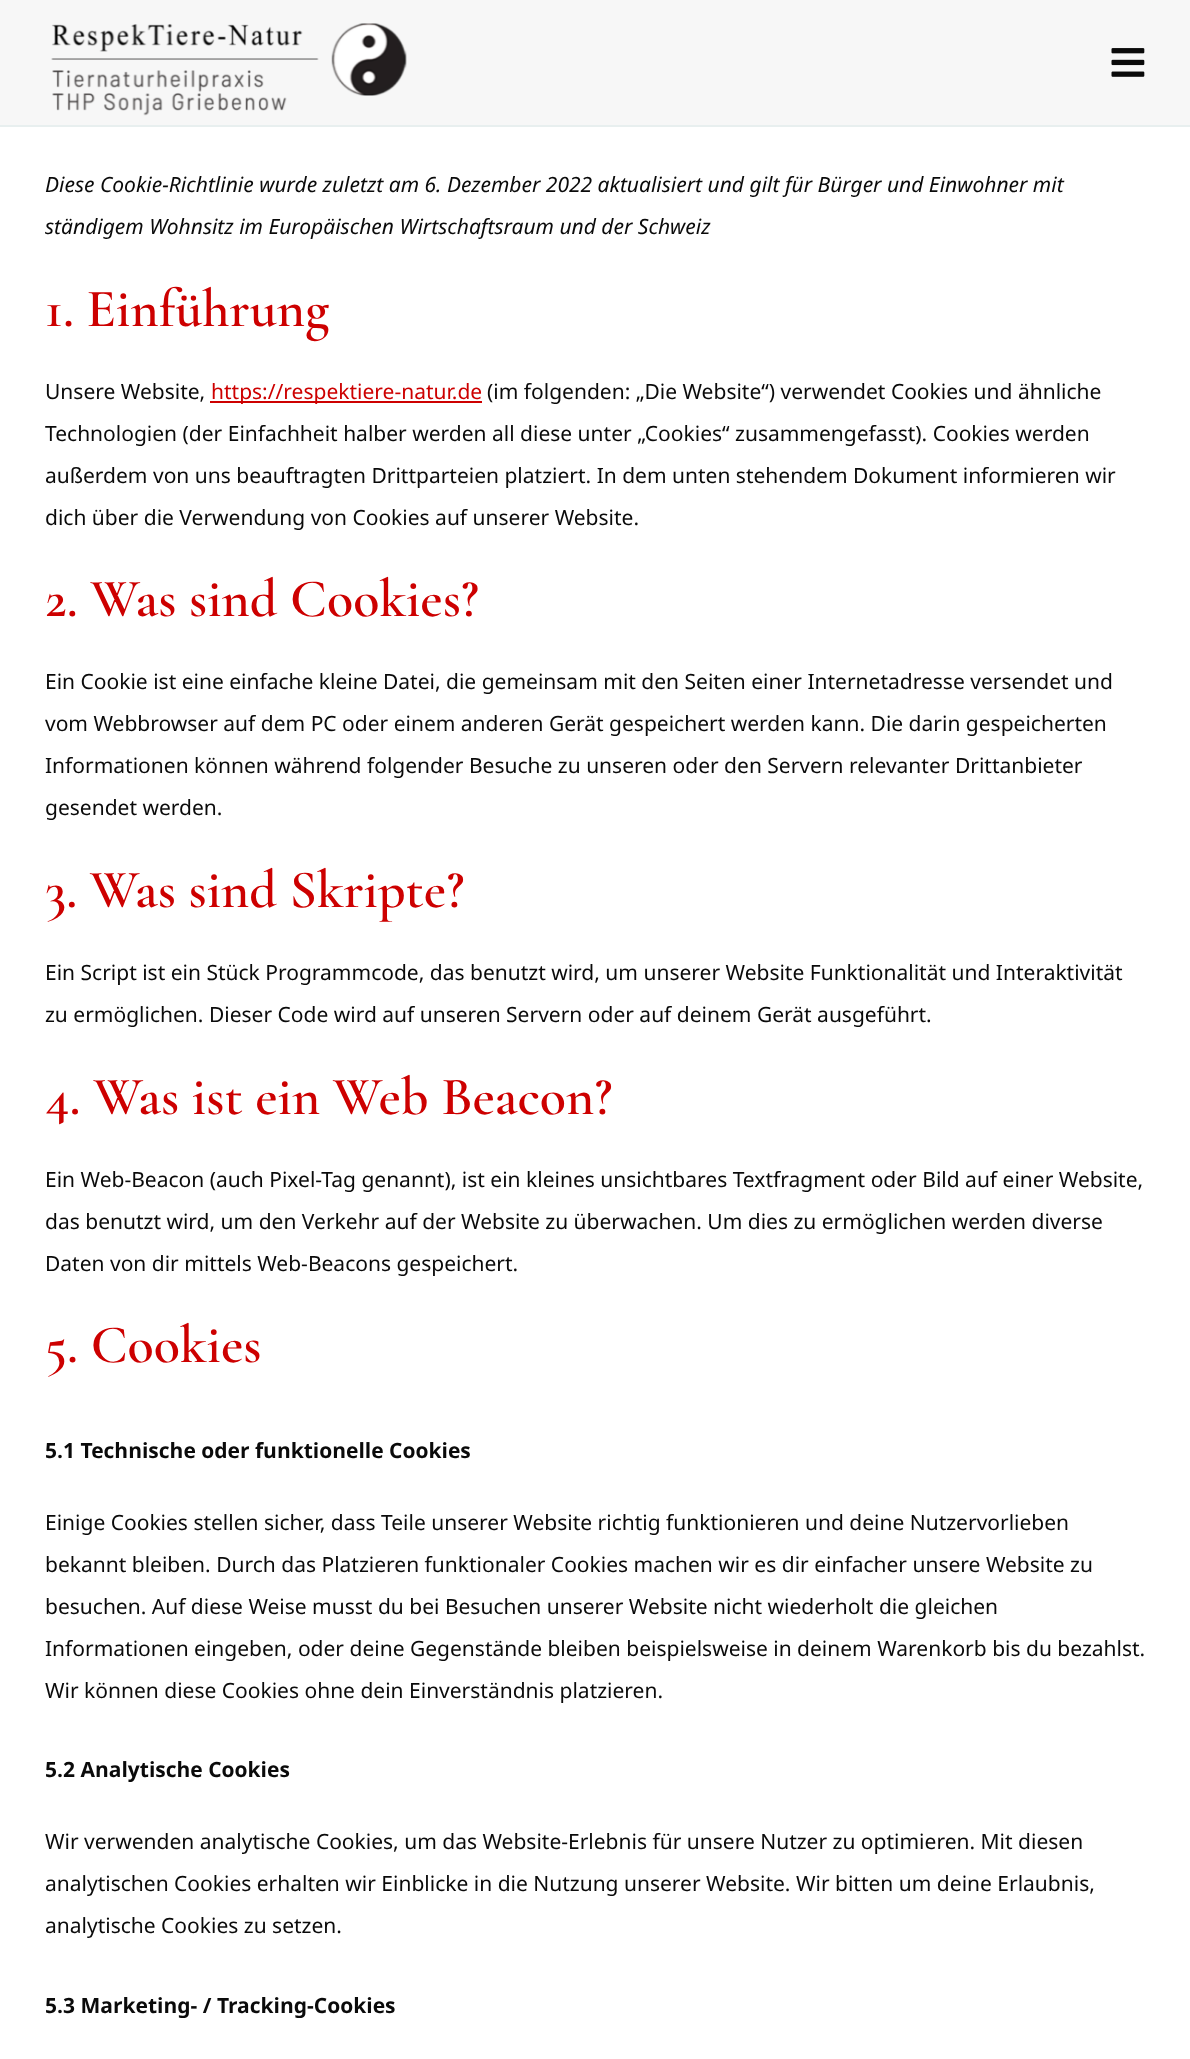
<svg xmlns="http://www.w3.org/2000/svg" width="1190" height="2059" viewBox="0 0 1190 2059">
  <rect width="100%" height="100%" fill="rgb(255,255,255)"/>
  <rect x="0" y="0" width="1190" height="125" fill="rgb(247,247,247)"/>
  <rect x="0" y="125" width="1190" height="2" fill="rgb(232,239,239)"/>
  <image x="51" y="23" width="356" height="93" href="pic1.png"/>
  <image x="1111" y="48" width="34" height="29" href="pic2.png"/>
  <g font-family="Noto Sans" font-size="21" font-style="italic" fill="rgb(10,10,10)">
    <text x="45" y="192">Diese Cookie-Richtlinie wurde zuletzt am 6. Dezember 2022 aktualisiert und gilt für Bürger und Einwohner mit</text>
    <text x="45" y="234">ständigem Wohnsitz im Europäischen Wirtschaftsraum und der Schweiz</text>
  </g>
  <text x="45" y="326" font-family="Cormorant Garamond" font-size="54" font-weight="600" fill="rgb(205,0,0)">1. Einführung</text>
  <text x="45" y="399" font-family="Noto Sans" font-size="21" fill="rgb(10,10,10)">Unsere Website,</text>
  <rect x="210" y="401" width="272" height="2" fill="rgb(205,0,0)"/>
  <text x="211" y="399" font-family="Noto Sans" font-size="21" fill="rgb(205,0,0)">https://respektiere-natur.de</text>
  <g font-family="Noto Sans" font-size="21" fill="rgb(10,10,10)">
    <text x="487" y="399">(im folgenden: „Die Website“) verwendet Cookies und ähnliche</text>
    <text x="45" y="441">Technologien (der Einfachheit halber werden all diese unter „Cookies“ zusammengefasst). Cookies werden</text>
    <text x="45" y="483">außerdem von uns beauftragten Drittparteien platziert. In dem unten stehendem Dokument informieren wir</text>
    <text x="45" y="525">dich über die Verwendung von Cookies auf unserer Website.</text>
  </g>
  <text x="45" y="616" font-family="Cormorant Garamond" font-size="54" font-weight="600" fill="rgb(205,0,0)">2. Was sind Cookies?</text>
  <g font-family="Noto Sans" font-size="21" fill="rgb(10,10,10)">
    <text x="45" y="689">Ein Cookie ist eine einfache kleine Datei, die gemeinsam mit den Seiten einer Internetadresse versendet und</text>
    <text x="45" y="731">vom Webbrowser auf dem PC oder einem anderen Gerät gespeichert werden kann. Die darin gespeicherten</text>
    <text x="45" y="773">Informationen können während folgender Besuche zu unseren oder den Servern relevanter Drittanbieter</text>
    <text x="45" y="815">gesendet werden.</text>
  </g>
  <text x="45" y="907" font-family="Cormorant Garamond" font-size="54" font-weight="600" fill="rgb(205,0,0)">3. Was sind Skripte?</text>
  <g font-family="Noto Sans" font-size="21" fill="rgb(10,10,10)">
    <text x="45" y="980">Ein Script ist ein Stück Programmcode, das benutzt wird, um unserer Website Funktionalität und Interaktivität</text>
    <text x="45" y="1022">zu ermöglichen. Dieser Code wird auf unseren Servern oder auf deinem Gerät ausgeführt.</text>
  </g>
  <text x="45" y="1114" font-family="Cormorant Garamond" font-size="54" font-weight="600" fill="rgb(205,0,0)">4. Was ist ein Web Beacon?</text>
  <g font-family="Noto Sans" font-size="21" fill="rgb(10,10,10)">
    <text x="45" y="1187">Ein Web-Beacon (auch Pixel-Tag genannt), ist ein kleines unsichtbares Textfragment oder Bild auf einer Website,</text>
    <text x="45" y="1229">das benutzt wird, um den Verkehr auf der Website zu überwachen. Um dies zu ermöglichen werden diverse</text>
    <text x="45" y="1271">Daten von dir mittels Web-Beacons gespeichert.</text>
  </g>
  <text x="45" y="1362" font-family="Cormorant Garamond" font-size="54" font-weight="600" fill="rgb(205,0,0)">5. Cookies</text>
  <text x="45" y="1458" font-family="Noto Sans" font-size="21" font-weight="bold" fill="rgb(10,10,10)">5.1 Technische oder funktionelle Cookies</text>
  <g font-family="Noto Sans" font-size="21" fill="rgb(10,10,10)">
    <text x="45" y="1530">Einige Cookies stellen sicher, dass Teile unserer Website richtig funktionieren und deine Nutzervorlieben</text>
    <text x="45" y="1572">bekannt bleiben. Durch das Platzieren funktionaler Cookies machen wir es dir einfacher unsere Website zu</text>
    <text x="45" y="1614">besuchen. Auf diese Weise musst du bei Besuchen unserer Website nicht wiederholt die gleichen</text>
    <text x="45" y="1656">Informationen eingeben, oder deine Gegenstände bleiben beispielsweise in deinem Warenkorb bis du bezahlst.</text>
    <text x="45" y="1698">Wir können diese Cookies ohne dein Einverständnis platzieren.</text>
  </g>
  <text x="45" y="1777" font-family="Noto Sans" font-size="21" font-weight="bold" fill="rgb(10,10,10)">5.2 Analytische Cookies</text>
  <g font-family="Noto Sans" font-size="21" fill="rgb(10,10,10)">
    <text x="45" y="1849">Wir verwenden analytische Cookies, um das Website-Erlebnis für unsere Nutzer zu optimieren. Mit diesen</text>
    <text x="45" y="1891">analytischen Cookies erhalten wir Einblicke in die Nutzung unserer Website. Wir bitten um deine Erlaubnis,</text>
    <text x="45" y="1933">analytische Cookies zu setzen.</text>
  </g>
  <text x="45" y="2013" font-family="Noto Sans" font-size="21" font-weight="bold" fill="rgb(10,10,10)">5.3 Marketing- / Tracking-Cookies</text>
</svg>
